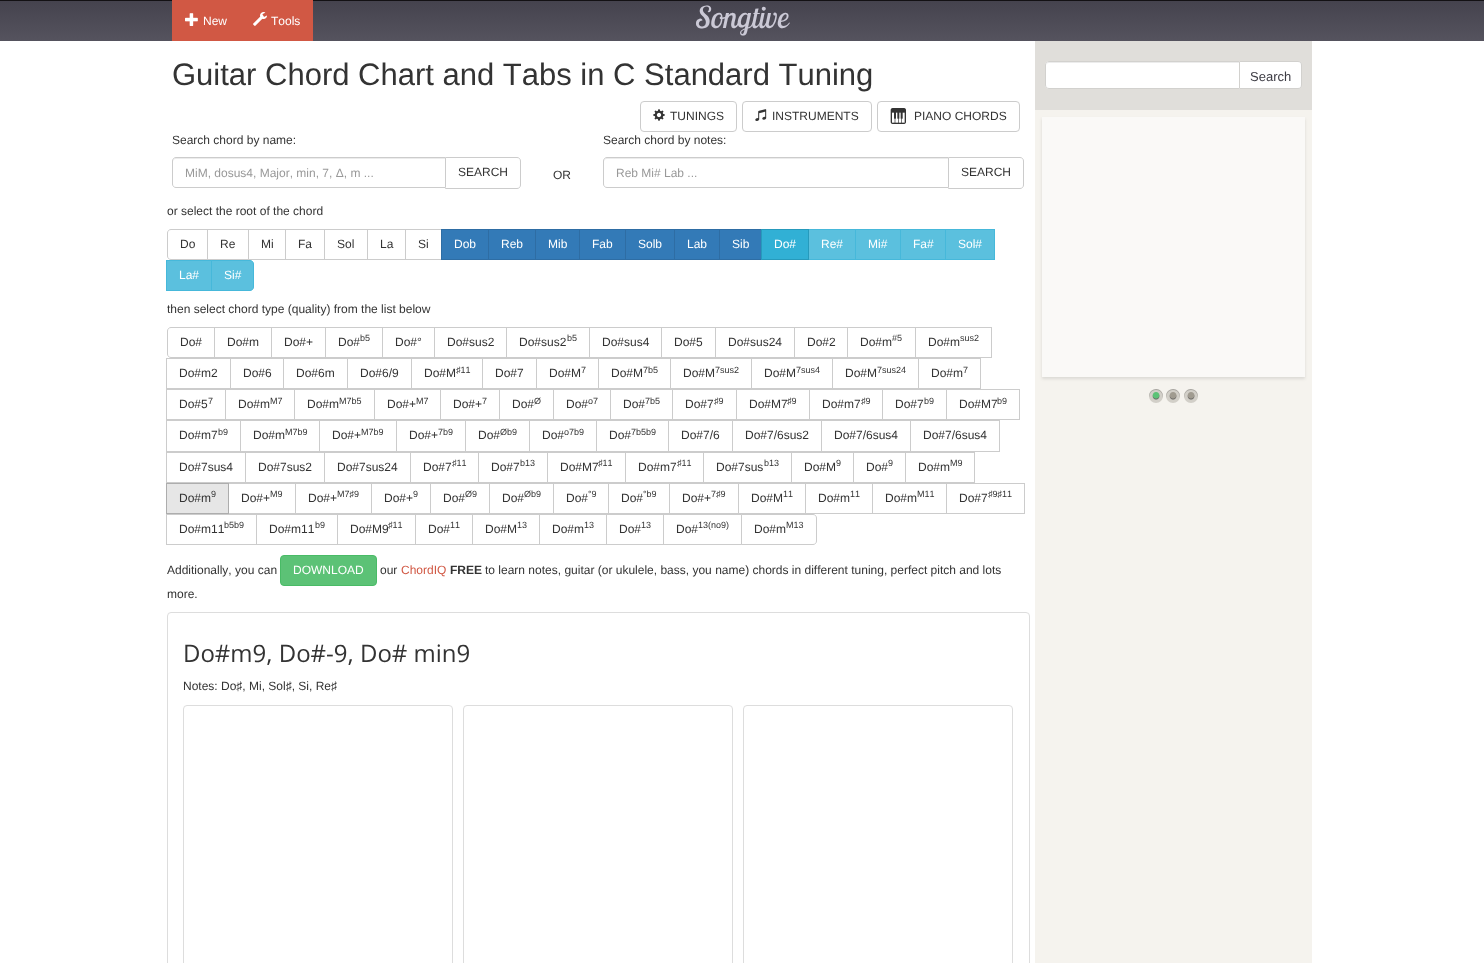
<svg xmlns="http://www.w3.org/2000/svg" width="1484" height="963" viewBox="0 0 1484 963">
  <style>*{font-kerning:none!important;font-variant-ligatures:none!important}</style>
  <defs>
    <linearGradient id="g1" gradientUnits="userSpaceOnUse" x1="742" y1="1" x2="742" y2="41"><stop offset="0" stop-color="rgb(69,67,78)"/><stop offset="1" stop-color="rgb(85,83,94)"/></linearGradient>
  </defs>
  <rect width="100%" height="100%" fill="rgb(255,255,255)"/>
  <rect x="0" y="1" width="1484" height="40" fill="url(#g1)"/>
  <rect x="0" y="0" width="1484" height="1" fill="rgb(19,17,20)"/>
  <rect x="172" y="0" width="141" height="41" fill="rgb(209,88,68)"/>
  <image x="185" y="13" width="13" height="13" href="pic1.png"/>
  <text x="203" y="25" font-family="Liberation Sans" font-size="12" fill="rgb(255,255,255)">New</text>
  <image x="253" y="12" width="14" height="14" href="pic2.png"/>
  <text x="271" y="25" font-family="Liberation Sans" font-size="12" fill="rgb(255,255,255)">Tools</text>
  <text x="696" y="28" font-family="Lobster Two" font-size="30" font-style="italic" fill="rgb(203,201,214)">Songtive</text>
  <text x="172" y="85" font-family="Liberation Sans" font-size="31" fill="rgb(51,51,51)">Guitar Chord Chart and Tabs in C Standard Tuning</text>
  <rect x="640.5" y="101.5" width="96" height="30" rx="3.5" fill="none" stroke="rgb(204,204,204)"/>
  <image x="653" y="109" width="12" height="12" href="pic3.png"/>
  <text x="670" y="120" font-family="Liberation Sans" font-size="12" fill="rgb(51,51,51)">TUNINGS</text>
  <rect x="742.5" y="101.5" width="129" height="30" rx="3.5" fill="none" stroke="rgb(204,204,204)"/>
  <image x="755" y="109" width="12" height="12" href="pic4.png"/>
  <text x="772" y="120" font-family="Liberation Sans" font-size="12" fill="rgb(51,51,51)">INSTRUMENTS</text>
  <rect x="877.5" y="101.5" width="142" height="30" rx="3.5" fill="none" stroke="rgb(204,204,204)"/>
  <image x="890" y="108" width="16" height="16" href="pic5.png"/>
  <g font-family="Liberation Sans" font-size="12" fill="rgb(51,51,51)">
    <text x="914" y="120">PIANO CHORDS</text>
    <text x="172" y="144">Search chord by name:</text>
  </g>
  <path d="M445.5 157.5H517C519 157.5 520.5 159 520.5 161V185C520.5 187 519 188.5 517 188.5H445.5Z" fill="none" stroke="rgb(204,204,204)"/>
  <path d="M176 157H446V188H176C174 188 172 186 172 184V161C172 159 174 157 176 157Z" fill="rgb(255,255,255)"/>
  <path d="M176 159H445V158H176C174 158 173 159 173 161V162C173 160 174 159 176 159Z" fill="rgb(236,236,236)"/>
  <path d="M176 157.5H445.5V187.5H176C174 187.5 172.5 186 172.5 184V161C172.5 159 174 157.5 176 157.5Z" fill="none" stroke="rgb(204,204,204)"/>
  <text x="185" y="177" font-family="Liberation Sans" font-size="12" fill="rgb(153,153,153)">MiM, dosus4, Major, min, 7, Δ, m ...</text>
  <g font-family="Liberation Sans" font-size="12" fill="rgb(51,51,51)">
    <text x="458" y="176">SEARCH</text>
    <text x="553" y="179">OR</text>
    <text x="603" y="144">Search chord by notes:</text>
  </g>
  <path d="M948.5 157.5H1020C1022 157.5 1023.5 159 1023.5 161V185C1023.5 187 1022 188.5 1020 188.5H948.5Z" fill="none" stroke="rgb(204,204,204)"/>
  <path d="M607 157H949V188H607C605 188 603 186 603 184V161C603 159 605 157 607 157Z" fill="rgb(255,255,255)"/>
  <path d="M607 159H948V158H607C605 158 604 159 604 161V162C604 160 605 159 607 159Z" fill="rgb(236,236,236)"/>
  <path d="M607 157.5H948.5V187.5H607C605 187.5 603.5 186 603.5 184V161C603.5 159 605 157.5 607 157.5Z" fill="none" stroke="rgb(204,204,204)"/>
  <text x="616" y="177" font-family="Liberation Sans" font-size="12" fill="rgb(153,153,153)">Reb Mi# Lab ...</text>
  <g font-family="Liberation Sans" font-size="12" fill="rgb(51,51,51)">
    <text x="961" y="176">SEARCH</text>
    <text x="167" y="215">or select the root of the chord</text>
  </g>
  <path d="M171 229.5H207.5V259.5H171C169 259.5 167.5 258 167.5 256V233C167.5 231 169 229.5 171 229.5Z" fill="none" stroke="rgb(204,204,204)"/>
  <text x="180" y="248" font-family="Liberation Sans" font-size="12" fill="rgb(51,51,51)">Do</text>
  <rect x="207.5" y="229.5" width="41" height="30" fill="none" stroke="rgb(204,204,204)"/>
  <text x="220" y="248" font-family="Liberation Sans" font-size="12" fill="rgb(51,51,51)">Re</text>
  <rect x="248.5" y="229.5" width="37" height="30" fill="none" stroke="rgb(204,204,204)"/>
  <text x="261" y="248" font-family="Liberation Sans" font-size="12" fill="rgb(51,51,51)">Mi</text>
  <rect x="285.5" y="229.5" width="39" height="30" fill="none" stroke="rgb(204,204,204)"/>
  <text x="298" y="248" font-family="Liberation Sans" font-size="12" fill="rgb(51,51,51)">Fa</text>
  <rect x="324.5" y="229.5" width="43" height="30" fill="none" stroke="rgb(204,204,204)"/>
  <text x="337" y="248" font-family="Liberation Sans" font-size="12" fill="rgb(51,51,51)">Sol</text>
  <rect x="367.5" y="229.5" width="38" height="30" fill="none" stroke="rgb(204,204,204)"/>
  <text x="380" y="248" font-family="Liberation Sans" font-size="12" fill="rgb(51,51,51)">La</text>
  <rect x="405.5" y="229.5" width="36" height="30" fill="none" stroke="rgb(204,204,204)"/>
  <text x="418" y="248" font-family="Liberation Sans" font-size="12" fill="rgb(51,51,51)">Si</text>
  <rect x="441.5" y="229.5" width="47" height="30" fill="rgb(51,122,183)" stroke="rgb(46,109,164)"/>
  <text x="454" y="248" font-family="Liberation Sans" font-size="12" fill="rgb(255,255,255)">Dob</text>
  <rect x="488.5" y="229.5" width="47" height="30" fill="rgb(51,122,183)" stroke="rgb(46,109,164)"/>
  <text x="501" y="248" font-family="Liberation Sans" font-size="12" fill="rgb(255,255,255)">Reb</text>
  <rect x="535.5" y="229.5" width="44" height="30" fill="rgb(51,122,183)" stroke="rgb(46,109,164)"/>
  <text x="548" y="248" font-family="Liberation Sans" font-size="12" fill="rgb(255,255,255)">Mib</text>
  <rect x="579.5" y="229.5" width="46" height="30" fill="rgb(51,122,183)" stroke="rgb(46,109,164)"/>
  <text x="592" y="248" font-family="Liberation Sans" font-size="12" fill="rgb(255,255,255)">Fab</text>
  <rect x="625.5" y="229.5" width="49" height="30" fill="rgb(51,122,183)" stroke="rgb(46,109,164)"/>
  <text x="638" y="248" font-family="Liberation Sans" font-size="12" fill="rgb(255,255,255)">Solb</text>
  <rect x="674.5" y="229.5" width="45" height="30" fill="rgb(51,122,183)" stroke="rgb(46,109,164)"/>
  <text x="687" y="248" font-family="Liberation Sans" font-size="12" fill="rgb(255,255,255)">Lab</text>
  <rect x="719.5" y="229.5" width="42" height="30" fill="rgb(51,122,183)" stroke="rgb(46,109,164)"/>
  <text x="732" y="248" font-family="Liberation Sans" font-size="12" fill="rgb(255,255,255)">Sib</text>
  <rect x="808.5" y="229.5" width="47" height="30" fill="rgb(91,192,222)" stroke="rgb(70,184,218)"/>
  <rect x="761.5" y="229.5" width="47" height="30" fill="rgb(49,176,213)" stroke="rgb(38,154,188)"/>
  <g font-family="Liberation Sans" font-size="12" fill="rgb(255,255,255)">
    <text x="774" y="248">Do#</text>
    <text x="821" y="248">Re#</text>
  </g>
  <rect x="855.5" y="229.5" width="45" height="30" fill="rgb(91,192,222)" stroke="rgb(70,184,218)"/>
  <text x="868" y="248" font-family="Liberation Sans" font-size="12" fill="rgb(255,255,255)">Mi#</text>
  <rect x="900.5" y="229.5" width="45" height="30" fill="rgb(91,192,222)" stroke="rgb(70,184,218)"/>
  <text x="913" y="248" font-family="Liberation Sans" font-size="12" fill="rgb(255,255,255)">Fa#</text>
  <rect x="945.5" y="229.5" width="49" height="30" fill="rgb(91,192,222)" stroke="rgb(70,184,218)"/>
  <text x="958" y="248" font-family="Liberation Sans" font-size="12" fill="rgb(255,255,255)">Sol#</text>
  <rect x="166.5" y="260.5" width="45" height="30" fill="rgb(91,192,222)" stroke="rgb(70,184,218)"/>
  <text x="179" y="279" font-family="Liberation Sans" font-size="12" fill="rgb(255,255,255)">La#</text>
  <path d="M211.5 260.5H250C252 260.5 253.5 262 253.5 264V287C253.5 289 252 290.5 250 290.5H211.5Z" fill="rgb(91,192,222)" stroke="rgb(70,184,218)"/>
  <text x="224" y="279" font-family="Liberation Sans" font-size="12" fill="rgb(255,255,255)">Si#</text>
  <text x="167" y="313" font-family="Liberation Sans" font-size="12" fill="rgb(51,51,51)">then select chord type (quality) from the list below</text>
  <path d="M171 327.5H214.5V357.5H171C169 357.5 167.5 356 167.5 354V331C167.5 329 169 327.5 171 327.5Z" fill="none" stroke="rgb(204,204,204)"/>
  <text x="180" y="346" font-family="Liberation Sans" font-size="12" fill="rgb(51,51,51)">Do#</text>
  <rect x="214.5" y="327.5" width="57" height="30" fill="none" stroke="rgb(204,204,204)"/>
  <text x="227" y="346" font-family="Liberation Sans" font-size="12" fill="rgb(51,51,51)">Do#m</text>
  <rect x="271.5" y="327.5" width="54" height="30" fill="none" stroke="rgb(204,204,204)"/>
  <text x="284" y="346" font-family="Liberation Sans" font-size="12" fill="rgb(51,51,51)">Do#+</text>
  <rect x="325.5" y="327.5" width="57" height="30" fill="none" stroke="rgb(204,204,204)"/>
  <text x="338" y="346" font-family="Liberation Sans" font-size="12" fill="rgb(51,51,51)">Do#</text>
  <text x="360" y="341" font-family="Liberation Sans" font-size="9" fill="rgb(51,51,51)">b5</text>
  <rect x="382.5" y="327.5" width="52" height="30" fill="none" stroke="rgb(204,204,204)"/>
  <text x="395" y="346" font-family="Liberation Sans" font-size="12" fill="rgb(51,51,51)">Do#°</text>
  <rect x="434.5" y="327.5" width="72" height="30" fill="none" stroke="rgb(204,204,204)"/>
  <text x="447" y="346" font-family="Liberation Sans" font-size="12" fill="rgb(51,51,51)">Do#sus2</text>
  <rect x="506.5" y="327.5" width="83" height="30" fill="none" stroke="rgb(204,204,204)"/>
  <text x="519" y="346" font-family="Liberation Sans" font-size="12" fill="rgb(51,51,51)">Do#sus2</text>
  <text x="567" y="341" font-family="Liberation Sans" font-size="9" fill="rgb(51,51,51)">b5</text>
  <rect x="589.5" y="327.5" width="72" height="30" fill="none" stroke="rgb(204,204,204)"/>
  <text x="602" y="346" font-family="Liberation Sans" font-size="12" fill="rgb(51,51,51)">Do#sus4</text>
  <rect x="661.5" y="327.5" width="54" height="30" fill="none" stroke="rgb(204,204,204)"/>
  <text x="674" y="346" font-family="Liberation Sans" font-size="12" fill="rgb(51,51,51)">Do#5</text>
  <rect x="715.5" y="327.5" width="79" height="30" fill="none" stroke="rgb(204,204,204)"/>
  <text x="728" y="346" font-family="Liberation Sans" font-size="12" fill="rgb(51,51,51)">Do#sus24</text>
  <rect x="794.5" y="327.5" width="53" height="30" fill="none" stroke="rgb(204,204,204)"/>
  <text x="807" y="346" font-family="Liberation Sans" font-size="12" fill="rgb(51,51,51)">Do#2</text>
  <rect x="847.5" y="327.5" width="68" height="30" fill="none" stroke="rgb(204,204,204)"/>
  <text x="860" y="346" font-family="Liberation Sans" font-size="12" fill="rgb(51,51,51)">Do#m</text>
  <text x="892" y="341" font-family="Liberation Sans" font-size="9" fill="rgb(51,51,51)">#5</text>
  <rect x="915.5" y="327.5" width="76" height="30" fill="none" stroke="rgb(204,204,204)"/>
  <text x="928" y="346" font-family="Liberation Sans" font-size="12" fill="rgb(51,51,51)">Do#m</text>
  <text x="960" y="341" font-family="Liberation Sans" font-size="9" fill="rgb(51,51,51)">sus2</text>
  <rect x="166.5" y="358.5" width="64" height="30" fill="none" stroke="rgb(204,204,204)"/>
  <text x="179" y="377" font-family="Liberation Sans" font-size="12" fill="rgb(51,51,51)">Do#m2</text>
  <rect x="230.5" y="358.5" width="53" height="30" fill="none" stroke="rgb(204,204,204)"/>
  <text x="243" y="377" font-family="Liberation Sans" font-size="12" fill="rgb(51,51,51)">Do#6</text>
  <rect x="283.5" y="358.5" width="64" height="30" fill="none" stroke="rgb(204,204,204)"/>
  <text x="296" y="377" font-family="Liberation Sans" font-size="12" fill="rgb(51,51,51)">Do#6m</text>
  <rect x="347.5" y="358.5" width="64" height="30" fill="none" stroke="rgb(204,204,204)"/>
  <text x="360" y="377" font-family="Liberation Sans" font-size="12" fill="rgb(51,51,51)">Do#6/9</text>
  <rect x="411.5" y="358.5" width="71" height="30" fill="none" stroke="rgb(204,204,204)"/>
  <text x="424" y="377" font-family="Liberation Sans" font-size="12" fill="rgb(51,51,51)">Do#M</text>
  <text x="456" y="373" font-family="Liberation Sans" font-size="9" fill="rgb(51,51,51)">♯11</text>
  <rect x="482.5" y="358.5" width="54" height="30" fill="none" stroke="rgb(204,204,204)"/>
  <text x="495" y="377" font-family="Liberation Sans" font-size="12" fill="rgb(51,51,51)">Do#7</text>
  <rect x="536.5" y="358.5" width="62" height="30" fill="none" stroke="rgb(204,204,204)"/>
  <text x="549" y="377" font-family="Liberation Sans" font-size="12" fill="rgb(51,51,51)">Do#M</text>
  <text x="581" y="373" font-family="Liberation Sans" font-size="9" fill="rgb(51,51,51)">7</text>
  <rect x="598.5" y="358.5" width="72" height="30" fill="none" stroke="rgb(204,204,204)"/>
  <text x="611" y="377" font-family="Liberation Sans" font-size="12" fill="rgb(51,51,51)">Do#M</text>
  <text x="643" y="373" font-family="Liberation Sans" font-size="9" fill="rgb(51,51,51)">7b5</text>
  <rect x="670.5" y="358.5" width="81" height="30" fill="none" stroke="rgb(204,204,204)"/>
  <text x="683" y="377" font-family="Liberation Sans" font-size="12" fill="rgb(51,51,51)">Do#M</text>
  <text x="715" y="373" font-family="Liberation Sans" font-size="9" fill="rgb(51,51,51)">7sus2</text>
  <rect x="751.5" y="358.5" width="81" height="30" fill="none" stroke="rgb(204,204,204)"/>
  <text x="764" y="377" font-family="Liberation Sans" font-size="12" fill="rgb(51,51,51)">Do#M</text>
  <text x="796" y="373" font-family="Liberation Sans" font-size="9" fill="rgb(51,51,51)">7sus4</text>
  <rect x="832.5" y="358.5" width="86" height="30" fill="none" stroke="rgb(204,204,204)"/>
  <text x="845" y="377" font-family="Liberation Sans" font-size="12" fill="rgb(51,51,51)">Do#M</text>
  <text x="877" y="373" font-family="Liberation Sans" font-size="9" fill="rgb(51,51,51)">7sus24</text>
  <rect x="918.5" y="358.5" width="62" height="30" fill="none" stroke="rgb(204,204,204)"/>
  <text x="931" y="377" font-family="Liberation Sans" font-size="12" fill="rgb(51,51,51)">Do#m</text>
  <text x="963" y="373" font-family="Liberation Sans" font-size="9" fill="rgb(51,51,51)">7</text>
  <rect x="166.5" y="389.5" width="59" height="30" fill="none" stroke="rgb(204,204,204)"/>
  <text x="179" y="408" font-family="Liberation Sans" font-size="12" fill="rgb(51,51,51)">Do#5</text>
  <text x="208" y="404" font-family="Liberation Sans" font-size="9" fill="rgb(51,51,51)">7</text>
  <rect x="225.5" y="389.5" width="69" height="30" fill="none" stroke="rgb(204,204,204)"/>
  <text x="238" y="408" font-family="Liberation Sans" font-size="12" fill="rgb(51,51,51)">Do#m</text>
  <text x="270" y="404" font-family="Liberation Sans" font-size="9" fill="rgb(51,51,51)">M7</text>
  <rect x="294.5" y="389.5" width="80" height="30" fill="none" stroke="rgb(204,204,204)"/>
  <text x="307" y="408" font-family="Liberation Sans" font-size="12" fill="rgb(51,51,51)">Do#m</text>
  <text x="339" y="404" font-family="Liberation Sans" font-size="9" fill="rgb(51,51,51)">M7b5</text>
  <rect x="374.5" y="389.5" width="66" height="30" fill="none" stroke="rgb(204,204,204)"/>
  <text x="387" y="408" font-family="Liberation Sans" font-size="12" fill="rgb(51,51,51)">Do#+</text>
  <text x="416" y="404" font-family="Liberation Sans" font-size="9" fill="rgb(51,51,51)">M7</text>
  <rect x="440.5" y="389.5" width="59" height="30" fill="none" stroke="rgb(204,204,204)"/>
  <text x="453" y="408" font-family="Liberation Sans" font-size="12" fill="rgb(51,51,51)">Do#+</text>
  <text x="482" y="404" font-family="Liberation Sans" font-size="9" fill="rgb(51,51,51)">7</text>
  <rect x="499.5" y="389.5" width="54" height="30" fill="none" stroke="rgb(204,204,204)"/>
  <text x="512" y="408" font-family="Liberation Sans" font-size="12" fill="rgb(51,51,51)">Do#</text>
  <text x="534" y="404" font-family="Liberation Sans" font-size="9" fill="rgb(51,51,51)">Ø</text>
  <rect x="553.5" y="389.5" width="57" height="30" fill="none" stroke="rgb(204,204,204)"/>
  <text x="566" y="408" font-family="Liberation Sans" font-size="12" fill="rgb(51,51,51)">Do#</text>
  <text x="588" y="404" font-family="Liberation Sans" font-size="9" fill="rgb(51,51,51)">o7</text>
  <rect x="610.5" y="389.5" width="62" height="30" fill="none" stroke="rgb(204,204,204)"/>
  <text x="623" y="408" font-family="Liberation Sans" font-size="12" fill="rgb(51,51,51)">Do#</text>
  <text x="645" y="404" font-family="Liberation Sans" font-size="9" fill="rgb(51,51,51)">7b5</text>
  <rect x="672.5" y="389.5" width="64" height="30" fill="none" stroke="rgb(204,204,204)"/>
  <text x="685" y="408" font-family="Liberation Sans" font-size="12" fill="rgb(51,51,51)">Do#7</text>
  <text x="714" y="404" font-family="Liberation Sans" font-size="9" fill="rgb(51,51,51)">♯9</text>
  <rect x="736.5" y="389.5" width="73" height="30" fill="none" stroke="rgb(204,204,204)"/>
  <text x="749" y="408" font-family="Liberation Sans" font-size="12" fill="rgb(51,51,51)">Do#M7</text>
  <text x="787" y="404" font-family="Liberation Sans" font-size="9" fill="rgb(51,51,51)">♯9</text>
  <rect x="809.5" y="389.5" width="73" height="30" fill="none" stroke="rgb(204,204,204)"/>
  <text x="822" y="408" font-family="Liberation Sans" font-size="12" fill="rgb(51,51,51)">Do#m7</text>
  <text x="861" y="404" font-family="Liberation Sans" font-size="9" fill="rgb(51,51,51)">♯9</text>
  <rect x="882.5" y="389.5" width="64" height="30" fill="none" stroke="rgb(204,204,204)"/>
  <text x="895" y="408" font-family="Liberation Sans" font-size="12" fill="rgb(51,51,51)">Do#7</text>
  <text x="924" y="404" font-family="Liberation Sans" font-size="9" fill="rgb(51,51,51)">b9</text>
  <rect x="946.5" y="389.5" width="73" height="30" fill="none" stroke="rgb(204,204,204)"/>
  <text x="959" y="408" font-family="Liberation Sans" font-size="12" fill="rgb(51,51,51)">Do#M7</text>
  <text x="997" y="404" font-family="Liberation Sans" font-size="9" fill="rgb(51,51,51)">b9</text>
  <rect x="166.5" y="420.5" width="74" height="31" fill="none" stroke="rgb(204,204,204)"/>
  <text x="179" y="439" font-family="Liberation Sans" font-size="12" fill="rgb(51,51,51)">Do#m7</text>
  <text x="218" y="435" font-family="Liberation Sans" font-size="9" fill="rgb(51,51,51)">b9</text>
  <rect x="240.5" y="420.5" width="79" height="31" fill="none" stroke="rgb(204,204,204)"/>
  <text x="253" y="439" font-family="Liberation Sans" font-size="12" fill="rgb(51,51,51)">Do#m</text>
  <text x="285" y="435" font-family="Liberation Sans" font-size="9" fill="rgb(51,51,51)">M7b9</text>
  <rect x="319.5" y="420.5" width="77" height="31" fill="none" stroke="rgb(204,204,204)"/>
  <text x="332" y="439" font-family="Liberation Sans" font-size="12" fill="rgb(51,51,51)">Do#+</text>
  <text x="361" y="435" font-family="Liberation Sans" font-size="9" fill="rgb(51,51,51)">M7b9</text>
  <rect x="396.5" y="420.5" width="69" height="31" fill="none" stroke="rgb(204,204,204)"/>
  <text x="409" y="439" font-family="Liberation Sans" font-size="12" fill="rgb(51,51,51)">Do#+</text>
  <text x="438" y="435" font-family="Liberation Sans" font-size="9" fill="rgb(51,51,51)">7b9</text>
  <rect x="465.5" y="420.5" width="64" height="31" fill="none" stroke="rgb(204,204,204)"/>
  <text x="478" y="439" font-family="Liberation Sans" font-size="12" fill="rgb(51,51,51)">Do#</text>
  <text x="500" y="435" font-family="Liberation Sans" font-size="9" fill="rgb(51,51,51)">Øb9</text>
  <rect x="529.5" y="420.5" width="67" height="31" fill="none" stroke="rgb(204,204,204)"/>
  <text x="542" y="439" font-family="Liberation Sans" font-size="12" fill="rgb(51,51,51)">Do#</text>
  <text x="564" y="435" font-family="Liberation Sans" font-size="9" fill="rgb(51,51,51)">o7b9</text>
  <rect x="596.5" y="420.5" width="72" height="31" fill="none" stroke="rgb(204,204,204)"/>
  <text x="609" y="439" font-family="Liberation Sans" font-size="12" fill="rgb(51,51,51)">Do#</text>
  <text x="631" y="435" font-family="Liberation Sans" font-size="9" fill="rgb(51,51,51)">7b5b9</text>
  <rect x="668.5" y="420.5" width="64" height="31" fill="none" stroke="rgb(204,204,204)"/>
  <text x="681" y="439" font-family="Liberation Sans" font-size="12" fill="rgb(51,51,51)">Do#7/6</text>
  <rect x="732.5" y="420.5" width="89" height="31" fill="none" stroke="rgb(204,204,204)"/>
  <text x="745" y="439" font-family="Liberation Sans" font-size="12" fill="rgb(51,51,51)">Do#7/6sus2</text>
  <rect x="821.5" y="420.5" width="89" height="31" fill="none" stroke="rgb(204,204,204)"/>
  <text x="834" y="439" font-family="Liberation Sans" font-size="12" fill="rgb(51,51,51)">Do#7/6sus4</text>
  <rect x="910.5" y="420.5" width="89" height="31" fill="none" stroke="rgb(204,204,204)"/>
  <text x="923" y="439" font-family="Liberation Sans" font-size="12" fill="rgb(51,51,51)">Do#7/6sus4</text>
  <rect x="166.5" y="452.5" width="79" height="30" fill="none" stroke="rgb(204,204,204)"/>
  <text x="179" y="471" font-family="Liberation Sans" font-size="12" fill="rgb(51,51,51)">Do#7sus4</text>
  <rect x="245.5" y="452.5" width="79" height="30" fill="none" stroke="rgb(204,204,204)"/>
  <text x="258" y="471" font-family="Liberation Sans" font-size="12" fill="rgb(51,51,51)">Do#7sus2</text>
  <rect x="324.5" y="452.5" width="86" height="30" fill="none" stroke="rgb(204,204,204)"/>
  <text x="337" y="471" font-family="Liberation Sans" font-size="12" fill="rgb(51,51,51)">Do#7sus24</text>
  <rect x="410.5" y="452.5" width="68" height="30" fill="none" stroke="rgb(204,204,204)"/>
  <text x="423" y="471" font-family="Liberation Sans" font-size="12" fill="rgb(51,51,51)">Do#7</text>
  <text x="452" y="466" font-family="Liberation Sans" font-size="9" fill="rgb(51,51,51)">♯11</text>
  <rect x="478.5" y="452.5" width="69" height="30" fill="none" stroke="rgb(204,204,204)"/>
  <text x="491" y="471" font-family="Liberation Sans" font-size="12" fill="rgb(51,51,51)">Do#7</text>
  <text x="520" y="466" font-family="Liberation Sans" font-size="9" fill="rgb(51,51,51)">b13</text>
  <rect x="547.5" y="452.5" width="78" height="30" fill="none" stroke="rgb(204,204,204)"/>
  <text x="560" y="471" font-family="Liberation Sans" font-size="12" fill="rgb(51,51,51)">Do#M7</text>
  <text x="598" y="466" font-family="Liberation Sans" font-size="9" fill="rgb(51,51,51)">♯11</text>
  <rect x="625.5" y="452.5" width="78" height="30" fill="none" stroke="rgb(204,204,204)"/>
  <text x="638" y="471" font-family="Liberation Sans" font-size="12" fill="rgb(51,51,51)">Do#m7</text>
  <text x="677" y="466" font-family="Liberation Sans" font-size="9" fill="rgb(51,51,51)">♯11</text>
  <rect x="703.5" y="452.5" width="88" height="30" fill="none" stroke="rgb(204,204,204)"/>
  <text x="716" y="471" font-family="Liberation Sans" font-size="12" fill="rgb(51,51,51)">Do#7sus</text>
  <text x="764" y="466" font-family="Liberation Sans" font-size="9" fill="rgb(51,51,51)">b13</text>
  <rect x="791.5" y="452.5" width="62" height="30" fill="none" stroke="rgb(204,204,204)"/>
  <text x="804" y="471" font-family="Liberation Sans" font-size="12" fill="rgb(51,51,51)">Do#M</text>
  <text x="836" y="466" font-family="Liberation Sans" font-size="9" fill="rgb(51,51,51)">9</text>
  <rect x="853.5" y="452.5" width="52" height="30" fill="none" stroke="rgb(204,204,204)"/>
  <text x="866" y="471" font-family="Liberation Sans" font-size="12" fill="rgb(51,51,51)">Do#</text>
  <text x="888" y="466" font-family="Liberation Sans" font-size="9" fill="rgb(51,51,51)">9</text>
  <rect x="905.5" y="452.5" width="69" height="30" fill="none" stroke="rgb(204,204,204)"/>
  <text x="918" y="471" font-family="Liberation Sans" font-size="12" fill="rgb(51,51,51)">Do#m</text>
  <text x="950" y="466" font-family="Liberation Sans" font-size="9" fill="rgb(51,51,51)">M9</text>
  <rect x="228.5" y="483.5" width="67" height="30" fill="none" stroke="rgb(204,204,204)"/>
  <rect x="166.5" y="483.5" width="62" height="30" fill="rgb(230,230,230)" stroke="rgb(173,173,173)"/>
  <text x="179" y="502" font-family="Liberation Sans" font-size="12" fill="rgb(51,51,51)">Do#m</text>
  <text x="211" y="497" font-family="Liberation Sans" font-size="9" fill="rgb(51,51,51)">9</text>
  <text x="241" y="502" font-family="Liberation Sans" font-size="12" fill="rgb(51,51,51)">Do#+</text>
  <text x="270" y="497" font-family="Liberation Sans" font-size="9" fill="rgb(51,51,51)">M9</text>
  <rect x="295.5" y="483.5" width="76" height="30" fill="none" stroke="rgb(204,204,204)"/>
  <text x="308" y="502" font-family="Liberation Sans" font-size="12" fill="rgb(51,51,51)">Do#+</text>
  <text x="337" y="497" font-family="Liberation Sans" font-size="9" fill="rgb(51,51,51)">M7♯9</text>
  <rect x="371.5" y="483.5" width="59" height="30" fill="none" stroke="rgb(204,204,204)"/>
  <text x="384" y="502" font-family="Liberation Sans" font-size="12" fill="rgb(51,51,51)">Do#+</text>
  <text x="413" y="497" font-family="Liberation Sans" font-size="9" fill="rgb(51,51,51)">9</text>
  <rect x="430.5" y="483.5" width="59" height="30" fill="none" stroke="rgb(204,204,204)"/>
  <text x="443" y="502" font-family="Liberation Sans" font-size="12" fill="rgb(51,51,51)">Do#</text>
  <text x="465" y="497" font-family="Liberation Sans" font-size="9" fill="rgb(51,51,51)">Ø9</text>
  <rect x="489.5" y="483.5" width="64" height="30" fill="none" stroke="rgb(204,204,204)"/>
  <text x="502" y="502" font-family="Liberation Sans" font-size="12" fill="rgb(51,51,51)">Do#</text>
  <text x="524" y="497" font-family="Liberation Sans" font-size="9" fill="rgb(51,51,51)">Øb9</text>
  <rect x="553.5" y="483.5" width="55" height="30" fill="none" stroke="rgb(204,204,204)"/>
  <text x="566" y="502" font-family="Liberation Sans" font-size="12" fill="rgb(51,51,51)">Do#</text>
  <text x="588" y="497" font-family="Liberation Sans" font-size="9" fill="rgb(51,51,51)">°9</text>
  <rect x="608.5" y="483.5" width="61" height="30" fill="none" stroke="rgb(204,204,204)"/>
  <text x="621" y="502" font-family="Liberation Sans" font-size="12" fill="rgb(51,51,51)">Do#</text>
  <text x="643" y="497" font-family="Liberation Sans" font-size="9" fill="rgb(51,51,51)">°b9</text>
  <rect x="669.5" y="483.5" width="69" height="30" fill="none" stroke="rgb(204,204,204)"/>
  <text x="682" y="502" font-family="Liberation Sans" font-size="12" fill="rgb(51,51,51)">Do#+</text>
  <text x="711" y="497" font-family="Liberation Sans" font-size="9" fill="rgb(51,51,51)">7♯9</text>
  <rect x="738.5" y="483.5" width="67" height="30" fill="none" stroke="rgb(204,204,204)"/>
  <text x="751" y="502" font-family="Liberation Sans" font-size="12" fill="rgb(51,51,51)">Do#M</text>
  <text x="783" y="497" font-family="Liberation Sans" font-size="9" fill="rgb(51,51,51)">11</text>
  <rect x="805.5" y="483.5" width="67" height="30" fill="none" stroke="rgb(204,204,204)"/>
  <text x="818" y="502" font-family="Liberation Sans" font-size="12" fill="rgb(51,51,51)">Do#m</text>
  <text x="850" y="497" font-family="Liberation Sans" font-size="9" fill="rgb(51,51,51)">11</text>
  <rect x="872.5" y="483.5" width="74" height="30" fill="none" stroke="rgb(204,204,204)"/>
  <text x="885" y="502" font-family="Liberation Sans" font-size="12" fill="rgb(51,51,51)">Do#m</text>
  <text x="917" y="497" font-family="Liberation Sans" font-size="9" fill="rgb(51,51,51)">M11</text>
  <rect x="946.5" y="483.5" width="78" height="30" fill="none" stroke="rgb(204,204,204)"/>
  <text x="959" y="502" font-family="Liberation Sans" font-size="12" fill="rgb(51,51,51)">Do#7</text>
  <text x="988" y="497" font-family="Liberation Sans" font-size="9" fill="rgb(51,51,51)">♯9♯11</text>
  <rect x="166.5" y="514.5" width="90" height="30" fill="none" stroke="rgb(204,204,204)"/>
  <text x="179" y="533" font-family="Liberation Sans" font-size="12" fill="rgb(51,51,51)">Do#m11</text>
  <text x="224" y="528" font-family="Liberation Sans" font-size="9" fill="rgb(51,51,51)">b5b9</text>
  <rect x="256.5" y="514.5" width="81" height="30" fill="none" stroke="rgb(204,204,204)"/>
  <text x="269" y="533" font-family="Liberation Sans" font-size="12" fill="rgb(51,51,51)">Do#m11</text>
  <text x="315" y="528" font-family="Liberation Sans" font-size="9" fill="rgb(51,51,51)">b9</text>
  <rect x="337.5" y="514.5" width="78" height="30" fill="none" stroke="rgb(204,204,204)"/>
  <text x="350" y="533" font-family="Liberation Sans" font-size="12" fill="rgb(51,51,51)">Do#M9</text>
  <text x="388" y="528" font-family="Liberation Sans" font-size="9" fill="rgb(51,51,51)">♯11</text>
  <rect x="415.5" y="514.5" width="57" height="30" fill="none" stroke="rgb(204,204,204)"/>
  <text x="428" y="533" font-family="Liberation Sans" font-size="12" fill="rgb(51,51,51)">Do#</text>
  <text x="450" y="528" font-family="Liberation Sans" font-size="9" fill="rgb(51,51,51)">11</text>
  <rect x="472.5" y="514.5" width="67" height="30" fill="none" stroke="rgb(204,204,204)"/>
  <text x="485" y="533" font-family="Liberation Sans" font-size="12" fill="rgb(51,51,51)">Do#M</text>
  <text x="517" y="528" font-family="Liberation Sans" font-size="9" fill="rgb(51,51,51)">13</text>
  <rect x="539.5" y="514.5" width="67" height="30" fill="none" stroke="rgb(204,204,204)"/>
  <text x="552" y="533" font-family="Liberation Sans" font-size="12" fill="rgb(51,51,51)">Do#m</text>
  <text x="584" y="528" font-family="Liberation Sans" font-size="9" fill="rgb(51,51,51)">13</text>
  <rect x="606.5" y="514.5" width="57" height="30" fill="none" stroke="rgb(204,204,204)"/>
  <text x="619" y="533" font-family="Liberation Sans" font-size="12" fill="rgb(51,51,51)">Do#</text>
  <text x="641" y="528" font-family="Liberation Sans" font-size="9" fill="rgb(51,51,51)">13</text>
  <rect x="663.5" y="514.5" width="78" height="30" fill="none" stroke="rgb(204,204,204)"/>
  <text x="676" y="533" font-family="Liberation Sans" font-size="12" fill="rgb(51,51,51)">Do#</text>
  <text x="698" y="528" font-family="Liberation Sans" font-size="9" fill="rgb(51,51,51)">13(no9)</text>
  <path d="M741.5 514.5H813C815 514.5 816.5 516 816.5 518V541C816.5 543 815 544.5 813 544.5H741.5Z" fill="rgb(255,255,255)" stroke="rgb(204,204,204)"/>
  <text x="754" y="533" font-family="Liberation Sans" font-size="12" fill="rgb(51,51,51)">Do#m</text>
  <text x="786" y="528" font-family="Liberation Sans" font-size="9" fill="rgb(51,51,51)">M13</text>
  <text x="167" y="574" font-family="Liberation Sans" font-size="12" fill="rgb(51,51,51)">Additionally, you can</text>
  <rect x="280.5" y="555.5" width="96" height="30" rx="3.5" fill="rgb(92,194,118)" stroke="rgb(73,187,102)"/>
  <text x="293" y="574" font-family="Liberation Sans" font-size="12" fill="rgb(255,255,255)">DOWNLOAD</text>
  <text x="380" y="574" font-family="Liberation Sans" font-size="12" fill="rgb(51,51,51)">our</text>
  <text x="401" y="574" font-family="Liberation Sans" font-size="12" fill="rgb(209,88,68)">ChordIQ</text>
  <text x="450" y="574" font-family="Liberation Sans" font-size="12" font-weight="bold" fill="rgb(51,51,51)">FREE</text>
  <g font-family="Liberation Sans" font-size="12" fill="rgb(51,51,51)">
    <text x="485" y="574">to learn notes, guitar (or ukulele, bass, you name) chords in different tuning, perfect pitch and lots</text>
    <text x="167" y="598">more.</text>
  </g>
  <rect x="167.5" y="612.5" width="862" height="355" rx="3.5" fill="none" stroke="rgb(221,221,221)"/>
  <text x="183" y="662" font-family="Open Sans" font-size="24" fill="rgb(51,51,51)">Do#m9, Do#-9, Do# min9</text>
  <text x="183" y="690" font-family="Liberation Sans" font-size="12" fill="rgb(51,51,51)">Notes: Do♯, Mi, Sol♯, Si, Re♯</text>
  <rect x="183.5" y="705.5" width="269" height="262" rx="3.5" fill="none" stroke="rgb(221,221,221)"/>
  <rect x="463.5" y="705.5" width="269" height="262" rx="3.5" fill="none" stroke="rgb(221,221,221)"/>
  <rect x="743.5" y="705.5" width="269" height="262" rx="3.5" fill="none" stroke="rgb(221,221,221)"/>
  <rect x="1035" y="110" width="277" height="853" fill="rgb(245,243,238)"/>
  <rect x="1035" y="41" width="277" height="69" fill="rgb(224,222,218)"/>
  <path d="M1239.5 61.5H1298C1300 61.5 1301.5 63 1301.5 65V85C1301.5 87 1300 88.5 1298 88.5H1239.5Z" fill="rgb(255,255,255)" stroke="rgb(210,209,206)"/>
  <path d="M1049 61H1240V89H1049C1047 89 1045 87 1045 85V65C1045 63 1047 61 1049 61Z" fill="rgb(255,255,255)"/>
  <path d="M1049 63H1239V62H1049C1047 62 1046 64 1046 66C1046 64 1047 63 1049 63Z" fill="rgb(236,236,236)"/>
  <path d="M1049 61.5H1239.5V88.5H1049C1047 88.5 1045.5 87 1045.5 85V65C1045.5 63 1047 61.5 1049 61.5Z" fill="none" stroke="rgb(210,209,206)"/>
  <text x="1250" y="81" font-family="Liberation Sans" font-size="13" fill="rgb(61,60,68)">Search</text>
  <rect x="1042" y="119" width="263" height="260" fill="rgba(0,0,0,0.1)" filter="blur(1.5px)"/>
  <rect x="1042" y="117" width="263" height="260" fill="rgb(250,249,247)"/>
  <circle cx="1156" cy="396" r="7" fill="rgb(210,207,200)"/>
  <image x="1152" y="392" width="8" height="8" href="pic6.png"/>
  <path d="M1156 390C1161 390 1163 394.5 1162.5 398C1163 396.5 1163 395 1162.5 393.5C1159 385 1146.5 390 1149.5 398C1149 394.5 1151 390 1156 390Z" fill="rgba(0,0,0,0.2)"/>
  <circle cx="1173" cy="396" r="7" fill="rgb(210,207,200)"/>
  <image x="1169" y="392" width="8" height="8" href="pic7.png"/>
  <path d="M1173 390C1178 390 1180 394.5 1179.5 398C1180 396.5 1180 395 1179.5 393.5C1176 385 1163.5 390 1166.5 398C1166 394.5 1168 390 1173 390Z" fill="rgba(0,0,0,0.2)"/>
  <circle cx="1191" cy="396" r="7" fill="rgb(210,207,200)"/>
  <image x="1187" y="392" width="8" height="8" href="pic7.png"/>
  <path d="M1191 390C1196 390 1198 394.5 1197.5 398C1200.5 390 1188 385 1184.5 393.5C1184 395 1184 396.5 1184.5 398C1184 394.5 1186 390 1191 390Z" fill="rgba(0,0,0,0.2)"/>
</svg>
